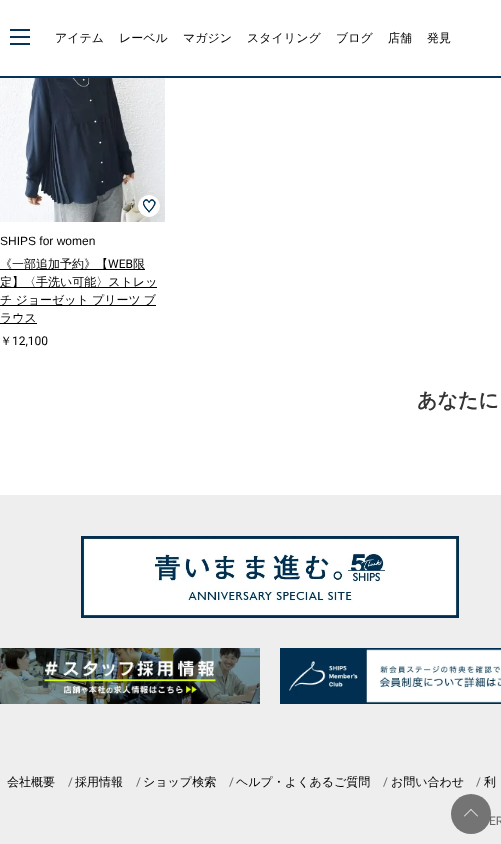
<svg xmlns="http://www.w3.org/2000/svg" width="501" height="844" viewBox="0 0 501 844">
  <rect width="100%" height="100%" fill="rgb(255,255,255)"/>
  <rect x="0" y="76" width="501" height="2" fill="rgb(4,52,90)"/>
  <rect x="10" y="36" width="20" height="2" fill="rgb(4,52,90)"/>
  <rect x="10" y="29" width="20" height="2" fill="rgb(4,52,90)"/>
  <rect x="10" y="43" width="20" height="2" fill="rgb(4,52,90)"/>
  <g font-family="WenQuanYi Zen Hei" font-size="12" font-weight="500" fill="rgb(0,0,0)">
    <text x="55" y="42">アイテム</text>
    <text x="119" y="42">レーベル</text>
    <text x="183" y="42">マガジン</text>
    <text x="247" y="42">スタイリング</text>
    <text x="336" y="42">ブログ</text>
    <text x="388" y="42">店舗</text>
    <text x="427" y="42">発見</text>
  </g>
  <image x="0" y="78" width="165" height="144" href="pic1.png"/>
  <circle cx="149" cy="206" r="10.5" fill="rgb(255,255,255)" stroke="rgb(255,255,255)"/>
  <image x="143" y="199" width="13" height="14" href="pic2.png"/>
  <text x="0" y="245" font-family="Liberation Sans" font-size="12" fill="rgb(0,0,0)">SHIPS for women</text>
  <rect x="0" y="269" width="145" height="1" fill="rgb(0,0,0)"/>
  <text x="0" y="268" font-family="WenQuanYi Zen Hei" font-size="12" font-weight="500" fill="rgb(0,0,0)">《一部追加予約》【</text>
  <text x="108" y="268" font-family="Roboto" font-size="12" fill="rgb(0,0,0)">WEB</text>
  <text x="133" y="268" font-family="WenQuanYi Zen Hei" font-size="12" font-weight="500" fill="rgb(0,0,0)">限</text>
  <rect x="0" y="287" width="157" height="1" fill="rgb(0,0,0)"/>
  <text x="0" y="286" font-family="WenQuanYi Zen Hei" font-size="12" font-weight="500" fill="rgb(0,0,0)">定】〈手洗い可能〉ストレッ</text>
  <rect x="0" y="305" width="156" height="1" fill="rgb(0,0,0)"/>
  <text x="0" y="304" word-spacing="-0.5" font-family="WenQuanYi Zen Hei" font-size="12" font-weight="500" fill="rgb(0,0,0)">チ ジョーゼット プリーツ ブ</text>
  <rect x="0" y="323" width="37" height="1" fill="rgb(0,0,0)"/>
  <g font-family="WenQuanYi Zen Hei" font-size="12" font-weight="500" fill="rgb(0,0,0)">
    <text>
      <tspan x="0" y="322">ラウス</tspan>
      <tspan x="0" y="345">￥</tspan>
    </text>
  </g>
  <text x="12" y="345" font-family="Roboto" font-size="12" fill="rgb(0,0,0)">12,100</text>
  <text x="417" y="407" font-family="WenQuanYi Zen Hei" font-size="20" font-weight="bold" fill="rgb(51,51,51)">あなたに</text>
  <rect x="0" y="495" width="501" height="349" fill="rgb(238,238,238)"/>
  <image x="81" y="536" width="378" height="82" href="pic3.png"/>
  <image x="0" y="648" width="260" height="56" href="pic4.png"/>
  <image x="280" y="648" width="221" height="56" href="pic5.png"/>
  <text x="7" y="786" font-family="WenQuanYi Zen Hei" font-size="12" font-weight="500" fill="rgb(0,0,0)">会社概要</text>
  <text x="68" y="786" font-family="Roboto" font-size="12" fill="rgb(102,102,102)">/</text>
  <text x="75" y="786" font-family="WenQuanYi Zen Hei" font-size="12" font-weight="500" fill="rgb(0,0,0)">採用情報</text>
  <text x="136" y="786" font-family="Roboto" font-size="12" fill="rgb(102,102,102)">/</text>
  <text x="143" y="786" font-family="WenQuanYi Zen Hei" font-size="12" font-weight="500" fill="rgb(0,0,0)">ショップ検索</text>
  <text x="229" y="786" font-family="Roboto" font-size="12" fill="rgb(102,102,102)">/</text>
  <text x="236" y="786" font-family="WenQuanYi Zen Hei" font-size="12" font-weight="500" fill="rgb(0,0,0)">ヘルプ・よくあるご質問</text>
  <text x="383" y="786" font-family="Roboto" font-size="12" fill="rgb(102,102,102)">/</text>
  <text x="391" y="786" font-family="WenQuanYi Zen Hei" font-size="12" font-weight="500" fill="rgb(0,0,0)">お問い合わせ</text>
  <text x="476" y="786" font-family="Roboto" font-size="12" fill="rgb(102,102,102)">/</text>
  <text x="484" y="786" font-family="WenQuanYi Zen Hei" font-size="12" font-weight="500" fill="rgb(0,0,0)">利</text>
  <text x="489" y="825" font-family="Roboto" font-size="12" fill="rgb(102,102,102)">ER</text>
  <circle cx="471" cy="814" r="20" fill="rgba(102,102,102,0.9)"/>
  <path d="M471 809L478 816L477.5 816.5L470.5 809.5Z" fill="rgb(255,255,255)"/>
  <path d="M471 809L471.5 809.5L464.5 816.5L464 816Z" fill="rgb(255,255,255)"/>
</svg>
